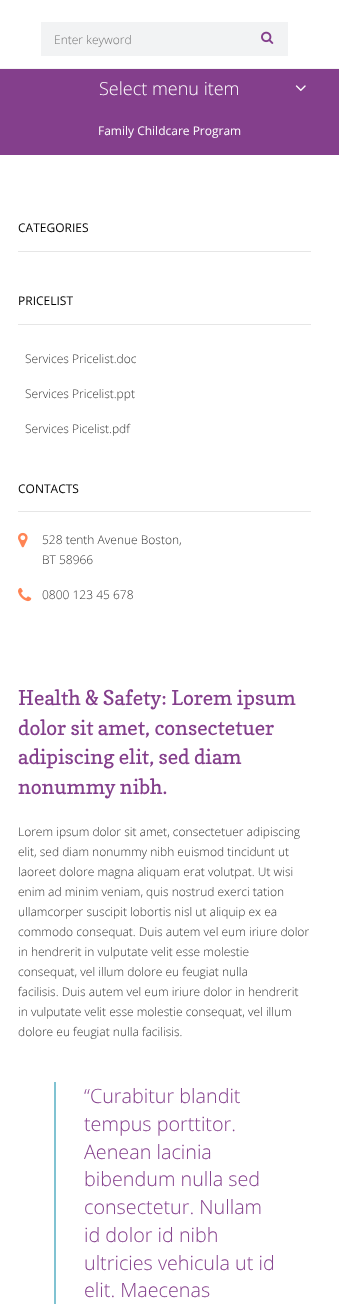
<svg xmlns="http://www.w3.org/2000/svg" width="339" height="1304" viewBox="0 0 339 1304">
  <rect width="100%" height="100%" fill="rgb(255,255,255)"/>
  <rect x="0" y="68" width="339" height="1" fill="rgb(244,244,244)"/>
  <rect x="41" y="22" width="247" height="34" fill="rgb(242,243,244)"/>
  <text x="54" y="44" font-family="Open Sans" font-size="12" font-weight="300" fill="rgb(117,117,117)">Enter keyword</text>
  <image x="261" y="31" width="13" height="13" href="pic1.png"/>
  <rect x="0" y="69" width="339" height="86" fill="rgb(132,63,140)"/>
  <text x="99" y="95" font-family="Open Sans" font-size="18" font-weight="300" fill="rgb(255,255,255)">Select menu item</text>
  <image x="295" y="85" width="11" height="7" href="pic2.png"/>
  <text x="98" y="135" font-family="Open Sans" font-size="12" fill="rgb(255,255,255)">Family Childcare Program</text>
  <text x="18" y="232" font-family="Open Sans" font-size="12" fill="rgb(0,0,0)">CATEGORIES</text>
  <rect x="18" y="251" width="293" height="1" fill="rgb(230,230,230)"/>
  <text x="18" y="305" font-family="Open Sans" font-size="12" fill="rgb(0,0,0)">PRICELIST</text>
  <rect x="18" y="324" width="293" height="1" fill="rgb(230,230,230)"/>
  <g font-family="Open Sans" font-size="12" font-weight="300" fill="rgb(51,51,51)">
    <text x="25" y="363">Services Pricelist.doc</text>
    <text x="25" y="398">Services Pricelist.ppt</text>
    <text x="25" y="433">Services Picelist.pdf</text>
  </g>
  <text x="18" y="493" font-family="Open Sans" font-size="12" fill="rgb(0,0,0)">CONTACTS</text>
  <rect x="18" y="511" width="293" height="1" fill="rgb(230,230,230)"/>
  <image x="18" y="532" width="10" height="16" href="pic3.png"/>
  <g font-family="Open Sans" font-size="12" font-weight="300" fill="rgb(51,51,51)">
    <text>
      <tspan x="42" y="544">528 tenth Avenue Boston,</tspan>
      <tspan x="42" y="564">BT 58966</tspan>
    </text>
  </g>
  <image x="18" y="587" width="14" height="15" href="pic4.png"/>
  <text x="42" y="599" font-family="Open Sans" font-size="12" font-weight="300" fill="rgb(51,51,51)">0800 123 45 678</text>
  <g font-family="Copse" font-size="20.4" fill="rgb(132,63,140)">
    <text>
      <tspan x="18" y="705">Health &amp; Safety: Lorem ipsum</tspan>
      <tspan x="18" y="735">dolor sit amet, consectetuer</tspan>
      <tspan x="18" y="764">adipiscing elit, sed diam</tspan>
      <tspan x="18" y="794">nonummy nibh.</tspan>
    </text>
  </g>
  <g font-family="Open Sans" font-size="12" font-weight="300" fill="rgb(51,51,51)">
    <text>
      <tspan x="18" y="836">Lorem ipsum dolor sit amet, consectetuer adipiscing</tspan>
      <tspan x="18" y="856">elit, sed diam nonummy nibh euismod tincidunt ut</tspan>
      <tspan x="18" y="876">laoreet dolore magna aliquam erat volutpat. Ut wisi</tspan>
      <tspan x="18" y="896">enim ad minim veniam, quis nostrud exerci tation</tspan>
      <tspan x="18" y="916">ullamcorper suscipit lobortis nisl ut aliquip ex ea</tspan>
      <tspan x="18" y="936">commodo consequat. Duis autem vel eum iriure dolor</tspan>
      <tspan x="18" y="956">in hendrerit in vulputate velit esse molestie</tspan>
      <tspan x="18" y="976">consequat, vel illum dolore eu feugiat nulla</tspan>
      <tspan x="18" y="996">facilisis. Duis autem vel eum iriure dolor in hendrerit</tspan>
      <tspan x="18" y="1016">in vulputate velit esse molestie consequat, vel illum</tspan>
      <tspan x="18" y="1036">dolore eu feugiat nulla facilisis.</tspan>
    </text>
  </g>
  <rect x="54" y="1082" width="2" height="222" fill="rgb(128,195,210)"/>
  <g font-family="Open Sans" font-size="19.75" font-weight="300" fill="rgb(132,63,140)">
    <text>
      <tspan x="84" y="1103">“Curabitur blandit</tspan>
      <tspan x="84" y="1131">tempus porttitor.</tspan>
      <tspan x="84" y="1159">Aenean lacinia</tspan>
      <tspan x="84" y="1186">bibendum nulla sed</tspan>
      <tspan x="84" y="1214">consectetur. Nullam</tspan>
      <tspan x="84" y="1242">id dolor id nibh</tspan>
      <tspan x="84" y="1270">ultricies vehicula ut id</tspan>
      <tspan x="84" y="1297">elit. Maecenas</tspan>
    </text>
  </g>
</svg>
